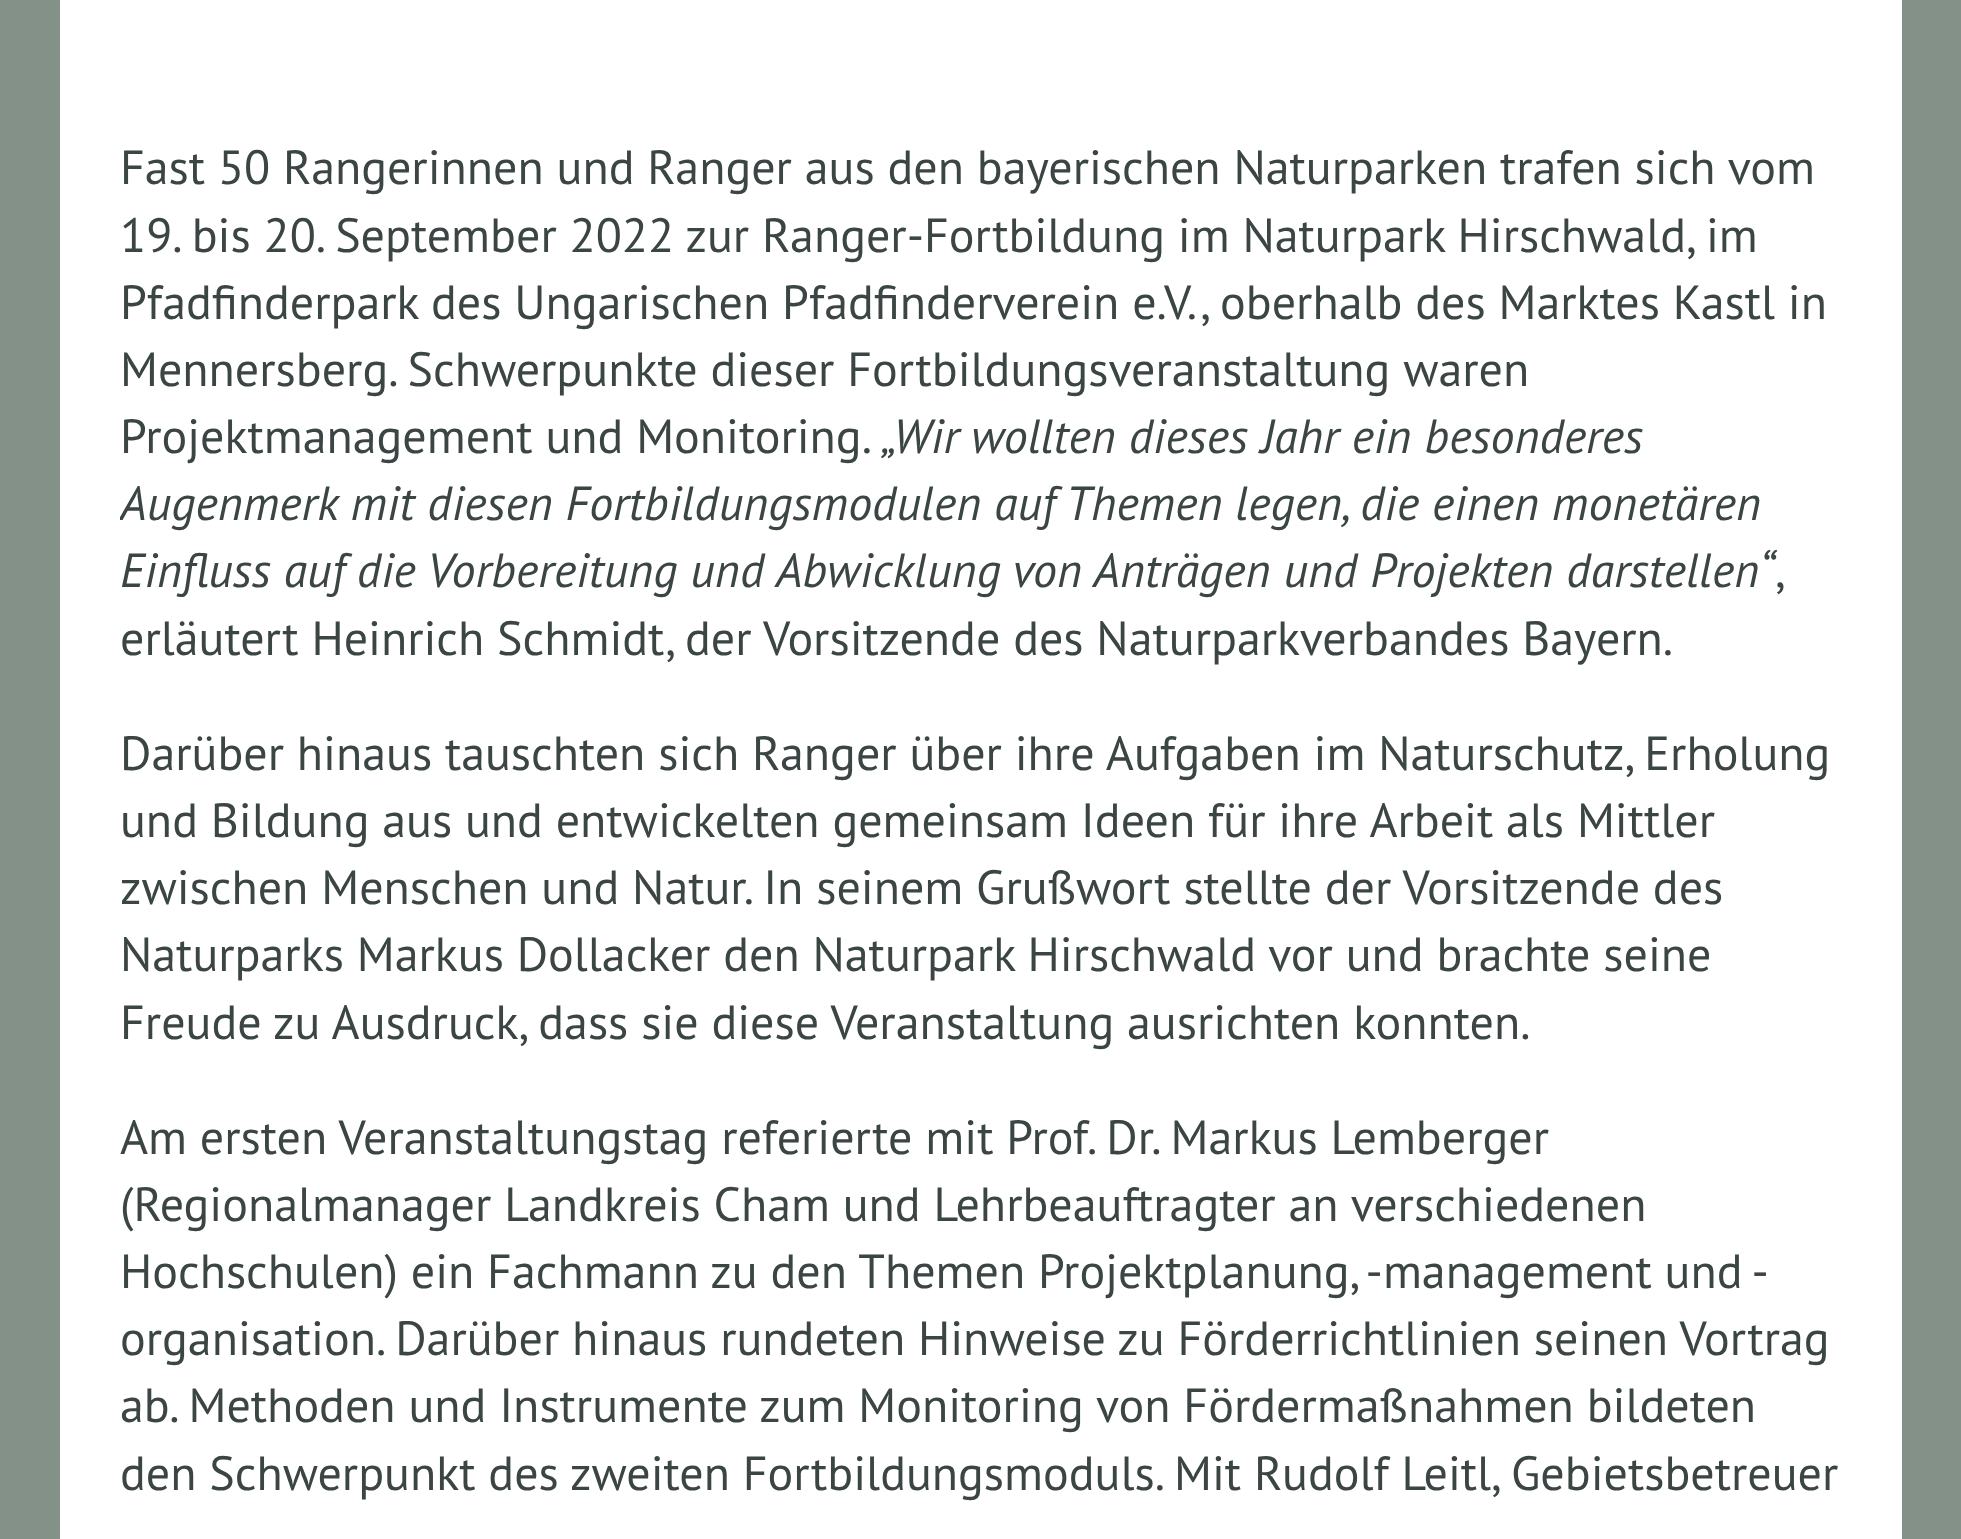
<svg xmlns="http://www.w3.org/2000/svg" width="1961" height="1539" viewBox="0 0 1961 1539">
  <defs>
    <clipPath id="clip1"><rect x="120" y="0" width="1722" height="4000"/></clipPath>
  </defs>
  <rect width="100%" height="100%" fill="rgb(132,145,137)"/>
  <rect x="60" y="0" width="1842" height="1539" fill="rgb(255,255,255)"/>
  <g font-family="PT Sans" font-size="48" fill="rgb(59,69,68)">
    <text>
      <tspan x="120" y="184">Fast 50 Rangerinnen und Ranger aus den bayerischen Naturparken trafen sich vom</tspan>
      <tspan x="120" y="252">19. bis 20. September 2022 zur Ranger-Fortbildung im Naturpark Hirschwald, im</tspan>
      <tspan x="120" y="319">Pfadfinderpark des Ungarischen Pfadfinderverein e.V., oberhalb des Marktes Kastl in</tspan>
      <tspan x="120" y="386">Mennersberg. Schwerpunkte dieser Fortbildungsveranstaltung waren</tspan>
      <tspan x="120" y="453">Projektmanagement und Monitoring.</tspan>
    </text>
  </g>
  <text x="881" y="453" font-family="PT Sans" font-size="48" font-style="italic" fill="rgb(59,69,68)">„Wir wollten dieses Jahr ein besonderes</text>
  <g clip-path="url(#clip1)">
    <text x="120" y="520" font-family="PT Sans" font-size="48" font-style="italic" fill="rgb(59,69,68)">Augenmerk mit diesen Fortbildungsmodulen auf Themen legen, die einen monetären</text>
  </g>
  <text x="120" y="587" font-family="PT Sans" font-size="48" font-style="italic" fill="rgb(59,69,68)">Einfluss auf die Vorbereitung und Abwicklung von Anträgen und Projekten darstellen“</text>
  <g font-family="PT Sans" font-size="48" fill="rgb(59,69,68)">
    <text x="1775" y="587">,</text>
    <text x="120" y="655">erläutert Heinrich Schmidt, der Vorsitzende des Naturparkverbandes Bayern.</text>
    <text>
      <tspan x="120" y="770">Darüber hinaus tauschten sich Ranger über ihre Aufgaben im Naturschutz, Erholung</tspan>
      <tspan x="120" y="837">und Bildung aus und entwickelten gemeinsam Ideen für ihre Arbeit als Mittler</tspan>
      <tspan x="120" y="904">zwischen Menschen und Natur. In seinem Grußwort stellte der Vorsitzende des</tspan>
      <tspan x="120" y="971">Naturparks Markus Dollacker den Naturpark Hirschwald vor und brachte seine</tspan>
      <tspan x="120" y="1039">Freude zu Ausdruck, dass sie diese Veranstaltung ausrichten konnten.</tspan>
    </text>
    <text>
      <tspan x="120" y="1154">Am ersten Veranstaltungstag referierte mit Prof. Dr. Markus Lemberger</tspan>
      <tspan x="120" y="1221">(Regionalmanager Landkreis Cham und Lehrbeauftragter an verschiedenen</tspan>
      <tspan x="120" y="1288">Hochschulen) ein Fachmann zu den Themen Projektplanung, -management und -</tspan>
      <tspan x="120" y="1355">organisation. Darüber hinaus rundeten Hinweise zu Förderrichtlinien seinen Vortrag</tspan>
      <tspan x="120" y="1422">ab. Methoden und Instrumente zum Monitoring von Fördermaßnahmen bildeten</tspan>
      <tspan x="120" y="1490">den Schwerpunkt des zweiten Fortbildungsmoduls. Mit Rudolf Leitl, Gebietsbetreuer</tspan>
    </text>
  </g>
</svg>
